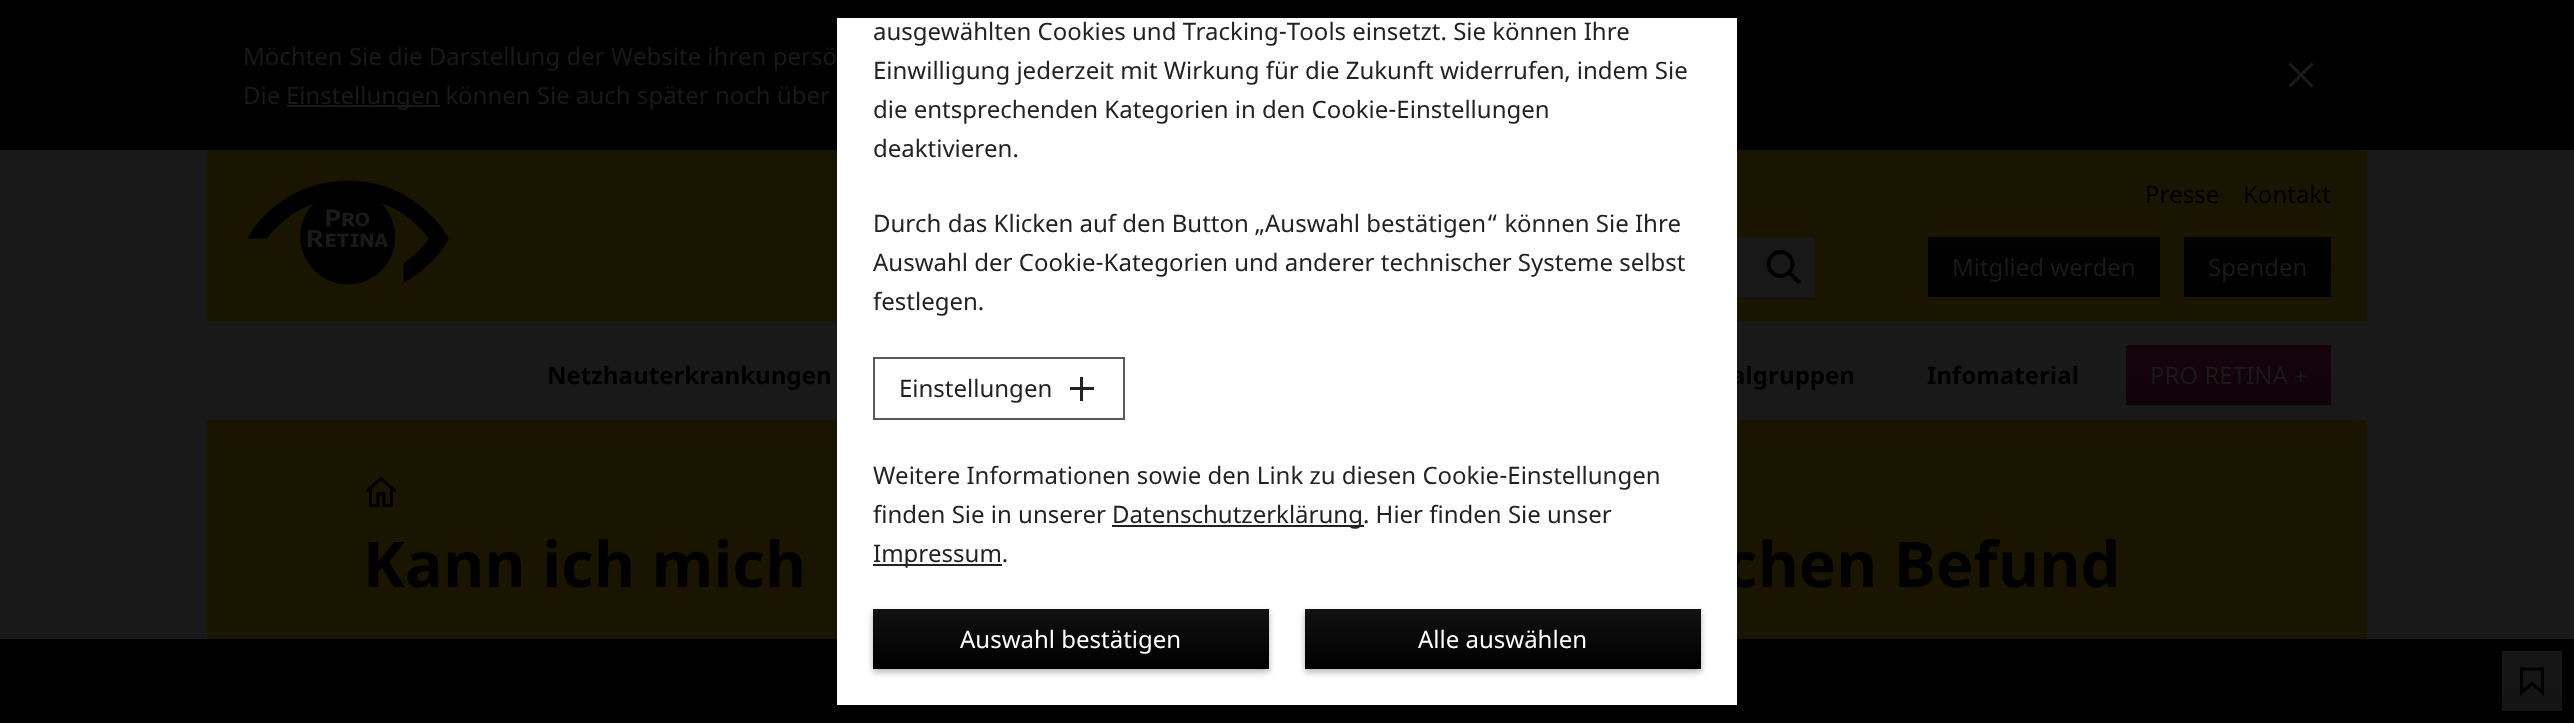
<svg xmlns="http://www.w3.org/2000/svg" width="2574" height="723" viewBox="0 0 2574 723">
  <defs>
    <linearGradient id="g1" gradientUnits="userSpaceOnUse" x1="1071" y1="609" x2="1071" y2="669"><stop offset="0" stop-color="rgb(17,17,17)"/><stop offset="1" stop-color="rgb(0,0,0)"/></linearGradient>
    <linearGradient id="g2" gradientUnits="userSpaceOnUse" x1="1503" y1="609" x2="1503" y2="669"><stop offset="0" stop-color="rgb(17,17,17)"/><stop offset="1" stop-color="rgb(0,0,0)"/></linearGradient>
    <linearGradient id="g3" gradientUnits="userSpaceOnUse" x1="2044" y1="237" x2="2044" y2="297"><stop offset="0" stop-color="rgb(2,2,2)"/><stop offset="1" stop-color="rgb(0,0,0)"/></linearGradient>
    <linearGradient id="g4" gradientUnits="userSpaceOnUse" x1="2258" y1="237" x2="2258" y2="297"><stop offset="0" stop-color="rgb(2,2,2)"/><stop offset="1" stop-color="rgb(0,0,0)"/></linearGradient>
    <linearGradient id="g5" gradientUnits="userSpaceOnUse" x1="2228" y1="345" x2="2228" y2="405"><stop offset="0" stop-color="rgb(22,4,12)"/><stop offset="1" stop-color="rgb(16,3,9)"/></linearGradient>
    <linearGradient id="g6" gradientUnits="userSpaceOnUse" x1="2532" y1="651" x2="2532" y2="711"><stop offset="0" stop-color="rgb(22,22,22)"/><stop offset="1" stop-color="rgb(20,20,20)"/></linearGradient>
  </defs>
  <rect width="100%" height="100%" fill="rgb(25,25,25)"/>
  <rect x="0" y="0" width="2574" height="150" fill="rgb(0,0,0)"/>
  <g font-family="Noto Sans" font-size="24" fill="rgb(25,25,25)">
    <text>
      <tspan x="243" y="65">Möchten Sie die Darstellung der Website ihren persö</tspan>
      <tspan x="243" y="104">Die</tspan>
    </text>
  </g>
  <rect x="287" y="105" width="153" height="2" fill="rgb(25,25,25)"/>
  <text x="286" y="104" font-family="Noto Sans" font-size="24" fill="rgb(25,25,25)">Einstellungen können Sie auch später noch über</text>
  <image x="2288" y="62" width="26" height="26" href="pic1.png"/>
  <rect x="207" y="150" width="2160" height="171" fill="rgb(25,21,0)"/>
  <text x="1731" y="384" font-family="Noto Sans" font-size="24" font-weight="bold" fill="rgb(0,0,0)">algruppen</text>
  <rect x="207" y="420" width="2160" height="219" fill="rgb(25,21,0)"/>
  <text x="1725" y="587" font-family="Noto Sans" font-size="63" font-weight="bold" fill="rgb(0,0,0)">chen Befund</text>
  <rect x="0" y="639" width="2574" height="84" fill="rgb(0,0,0)"/>
  <rect x="837" y="18" width="900" height="687" fill="rgb(255,255,255)"/>
  <g font-family="Noto Sans" font-size="24" fill="rgb(34,34,34)">
    <text>
      <tspan x="873" y="40">ausgewählten Cookies und Tracking-Tools einsetzt. Sie können Ihre</tspan>
      <tspan x="873" y="79">Einwilligung jederzeit mit Wirkung für die Zukunft widerrufen, indem Sie</tspan>
      <tspan x="873" y="118">die entsprechenden Kategorien in den Cookie-Einstellungen</tspan>
      <tspan x="873" y="157">deaktivieren.</tspan>
    </text>
    <text>
      <tspan x="873" y="232">Durch das Klicken auf den Button „Auswahl bestätigen“ können Sie Ihre</tspan>
      <tspan x="873" y="271">Auswahl der Cookie-Kategorien und anderer technischer Systeme selbst</tspan>
      <tspan x="873" y="310">festlegen.</tspan>
    </text>
  </g>
  <rect x="874" y="358" width="250" height="61" fill="none" stroke="rgb(89,89,89)" stroke-width="2"/>
  <text x="899" y="397" font-family="Noto Sans" font-size="24" fill="rgb(34,34,34)">Einstellungen</text>
  <rect x="1070" y="387" width="24" height="3" fill="rgb(34,34,34)"/>
  <rect x="1080" y="377" width="3" height="24" fill="rgb(34,34,34)"/>
  <g font-family="Noto Sans" font-size="24" fill="rgb(34,34,34)">
    <text>
      <tspan x="873" y="484">Weitere Informationen sowie den Link zu diesen Cookie-Einstellungen</tspan>
      <tspan x="873" y="523">finden Sie in unserer</tspan>
    </text>
  </g>
  <rect x="1112" y="525" width="252" height="2" fill="rgb(34,34,34)"/>
  <text x="1112" y="523" font-family="Noto Sans" font-size="24" fill="rgb(34,34,34)">Datenschutzerklärung. Hier finden Sie unser</text>
  <rect x="873" y="564" width="129" height="2" fill="rgb(34,34,34)"/>
  <text x="873" y="562" font-family="Noto Sans" font-size="24" fill="rgb(34,34,34)">Impressum.</text>
  <rect x="873" y="612" width="396" height="60" fill="rgba(0,0,0,0.3)" filter="blur(3px)"/>
  <rect x="873" y="609" width="396" height="60" fill="url(#g1)"/>
  <text x="960" y="648" font-family="Noto Sans" font-size="24" fill="rgb(255,255,255)">Auswahl bestätigen</text>
  <rect x="1305" y="612" width="396" height="60" fill="rgba(0,0,0,0.3)" filter="blur(3px)"/>
  <rect x="1305" y="609" width="396" height="60" fill="url(#g2)"/>
  <text x="1418" y="648" font-family="Noto Sans" font-size="24" fill="rgb(255,255,255)">Alle auswählen</text>
  <image x="247" y="180" width="202" height="105" href="pic2.png"/>
  <g font-family="Noto Sans" font-size="24" fill="rgb(0,0,0)">
    <text x="2145" y="203">Presse</text>
    <text x="2243" y="203">Kontakt</text>
  </g>
  <rect x="1737" y="237" width="77" height="60" fill="rgb(24,24,24)"/>
  <circle cx="1780.5" cy="264" r="12" fill="none" stroke="rgb(0,0,0)" stroke-width="3.8"/>
  <path d="M1801 281.5L1790.5 271.5L1788 274L1798 284.5Z" fill="rgb(0,0,0)"/>
  <rect x="1928" y="237" width="232" height="60" fill="url(#g3)"/>
  <text x="1952" y="276" font-family="Noto Sans" font-size="24" fill="rgb(25,25,25)">Mitglied werden</text>
  <rect x="2184" y="237" width="147" height="60" fill="url(#g4)"/>
  <text x="2208" y="276" font-family="Noto Sans" font-size="24" fill="rgb(25,25,25)">Spenden</text>
  <g font-family="Noto Sans" font-size="24" font-weight="bold" fill="rgb(0,0,0)">
    <text x="547" y="384">Netzhauterkrankungen</text>
    <text x="1927" y="384">Infomaterial</text>
  </g>
  <rect x="2126" y="345" width="205" height="60" fill="url(#g5)"/>
  <text x="2150" y="384" font-family="Noto Sans" font-size="24" fill="rgb(25,25,25)">PRO RETINA +</text>
  <path d="M394.5 490.5L391.5 488M367.5 490.5L370.5 488M370.5 488L381 478.5L391.5 488M370.5 488V505.5H378V493.5H384V505.5H391.5V488" fill="none" stroke="rgb(0,0,0)" stroke-width="3" stroke-linecap="round" stroke-linejoin="round"/>
  <text x="363" y="587" font-family="Noto Sans" font-size="63" font-weight="bold" fill="rgb(0,0,0)">Kann ich mich</text>
  <rect x="2502" y="651" width="60" height="60" fill="url(#g6)"/>
  <path d="M2531 684.5L2521.5 692.5V669H2542.5V692.5L2532 683.5Z" fill="none" stroke="rgb(0,0,0)" stroke-width="3"/>
</svg>
